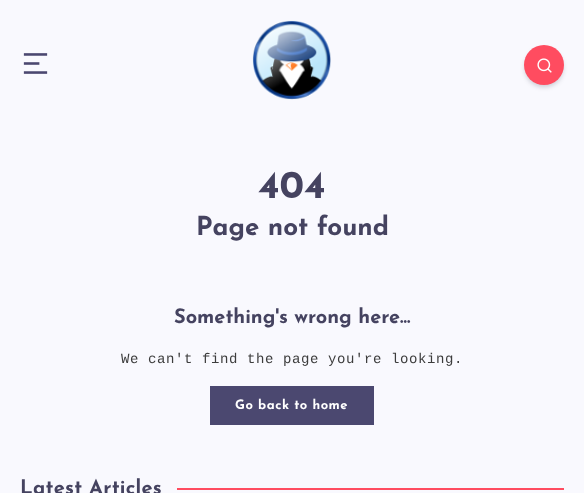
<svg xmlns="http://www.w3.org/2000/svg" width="584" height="493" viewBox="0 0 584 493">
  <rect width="100%" height="100%" fill="rgb(249,249,254)"/>
  <image x="23" y="53" width="25" height="21" href="pic1.png"/>
  <image x="252" y="20" width="79" height="80" href="pic2.png"/>
  <rect x="525" y="49" width="38" height="38" rx="19" fill="rgba(7,10,25,0.2)" filter="blur(2.5px)"/>
  <circle cx="544" cy="65" r="20" fill="rgb(255,76,96)"/>
  <image x="537" y="58" width="15" height="15" href="pic3.png"/>
  <text x="258" y="198" font-family="Josefin Sans" font-size="39" font-weight="bold" fill="rgb(69,67,96)">404</text>
  <text x="196" y="235" font-family="Josefin Sans" font-size="26" font-weight="bold" fill="rgb(69,67,96)">Page not found</text>
  <text x="174" y="323" font-family="Josefin Sans" font-size="20" font-weight="bold" fill="rgb(69,67,96)">Something's wrong here...</text>
  <text x="121" y="363" font-family="Liberation Mono" font-size="14" letter-spacing="0.6" fill="rgb(61,61,61)">We can't find the page you're looking.</text>
  <rect x="210" y="386" width="164" height="39" fill="rgb(75,72,112)"/>
  <text x="235" y="409" font-family="Josefin Sans" font-size="13" font-weight="bold" letter-spacing="0.5" fill="rgb(255,255,255)">Go back to home</text>
  <text x="20" y="494" font-family="Josefin Sans" font-size="20" font-weight="bold" letter-spacing="0.25" fill="rgb(69,67,96)">Latest Articles</text>
  <rect x="177" y="488" width="387" height="2" fill="rgb(255,76,96)"/>
</svg>
